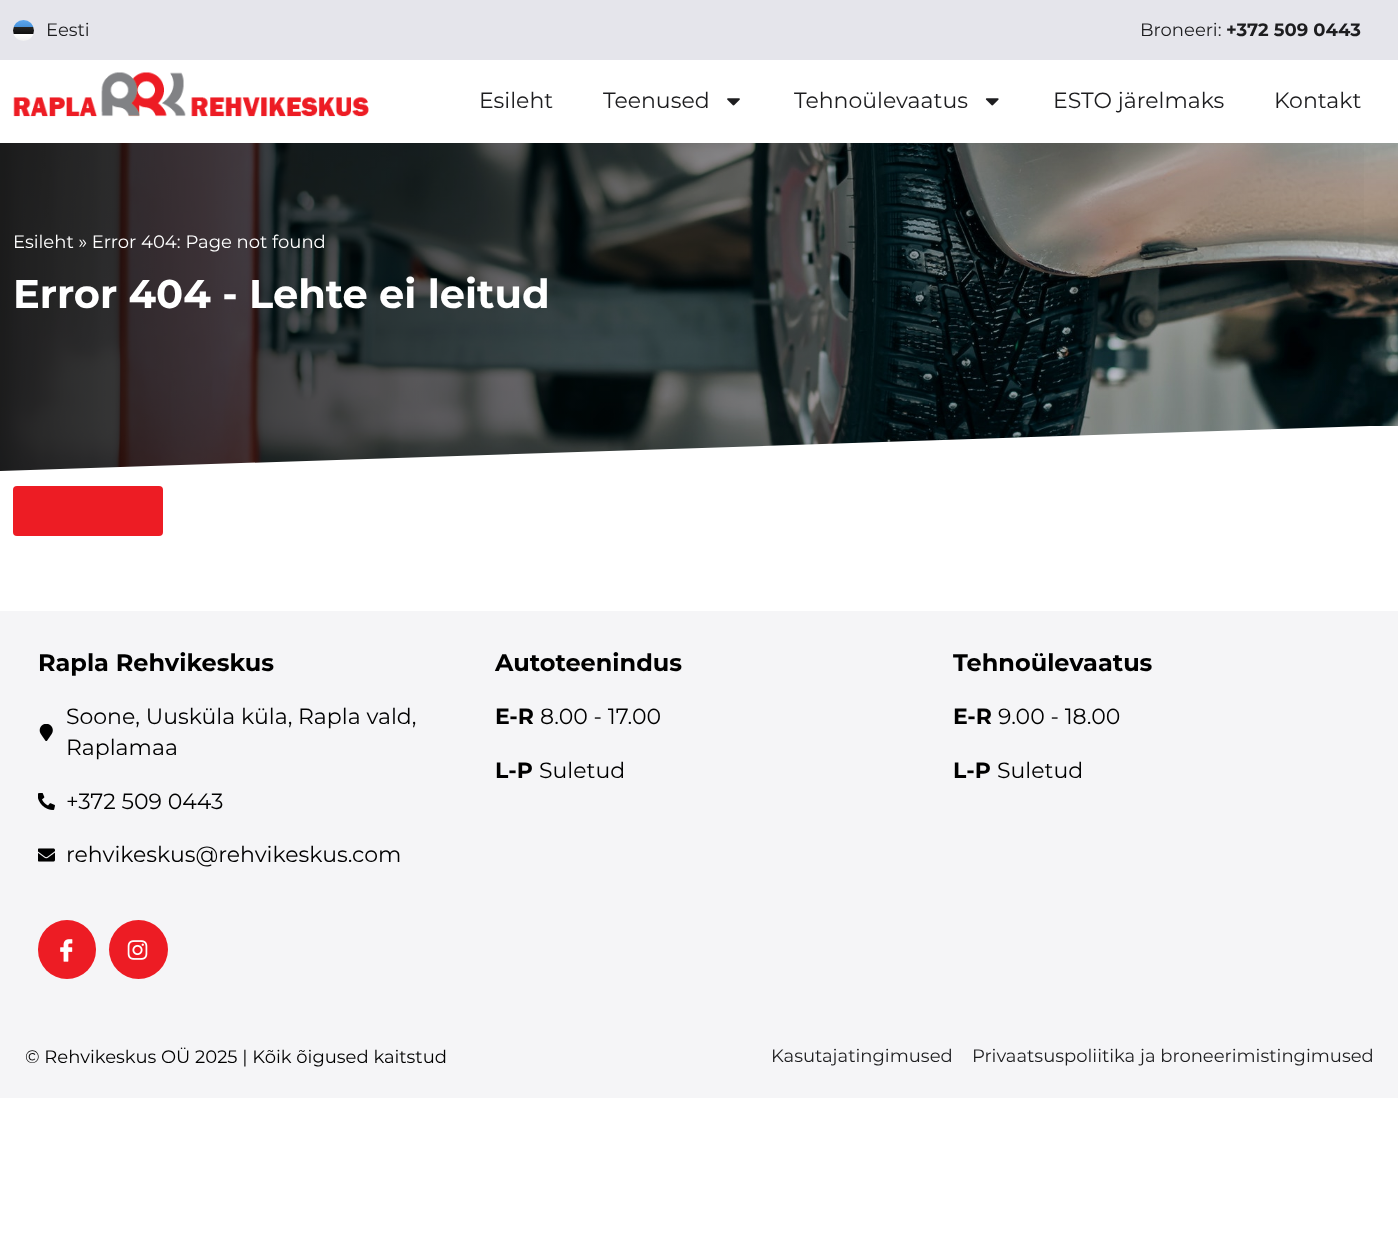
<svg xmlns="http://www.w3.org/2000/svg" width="1398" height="1248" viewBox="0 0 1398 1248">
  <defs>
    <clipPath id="clip1"><rect x="13" y="20" width="21" height="21" rx="10.5"/></clipPath>
    <linearGradient id="g1" gradientUnits="userSpaceOnUse" x1="24" y1="20" x2="24" y2="27"><stop offset="0" stop-color="rgb(93,168,241)"/><stop offset="1" stop-color="rgb(72,146,218)"/></linearGradient>
    <linearGradient id="g2" gradientUnits="userSpaceOnUse" x1="24" y1="27" x2="24" y2="34"><stop offset="0" stop-color="rgb(38,38,38)"/><stop offset="1" stop-color="rgb(13,13,13)"/></linearGradient>
    <linearGradient id="g3" gradientUnits="userSpaceOnUse" x1="24" y1="34" x2="24" y2="41"><stop offset="0" stop-color="rgb(255,255,255)"/><stop offset="1" stop-color="rgb(240,240,240)"/></linearGradient>
    <linearGradient id="g4" gradientUnits="userSpaceOnUse" x1="0" y1="264" x2="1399" y2="264"><stop offset="0" stop-color="rgb(0,0,0)" stop-opacity="0.86"/><stop offset="1" stop-color="rgb(0,0,0)" stop-opacity="0"/></linearGradient>
    <clipPath id="clip2"><rect x="0" y="426" width="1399" height="49"/></clipPath>
  </defs>
  <rect width="100%" height="100%" fill="rgb(255,255,255)"/>
  <rect x="0" y="0" width="1398" height="60" fill="rgb(229,229,235)"/>
  <g clip-path="url(#clip1)">
    <rect x="13" y="20" width="21" height="7" fill="url(#g1)"/>
    <rect x="13" y="27" width="21" height="7" fill="url(#g2)"/>
    <rect x="13" y="34" width="21" height="7" fill="url(#g3)"/>
  </g>
  <g font-family="Montserrat" font-size="18" fill="rgb(29,29,31)">
    <text x="46" y="36">Eesti</text>
    <text x="1140" y="36">Broneeri:</text>
  </g>
  <text x="1226" y="36" font-family="Montserrat" font-size="18" font-weight="bold" fill="rgb(29,29,31)">+372 509 0443</text>
  <image x="13" y="72" width="356" height="45" href="pic1.png"/>
  <g font-family="Montserrat" font-size="22" fill="rgb(29,29,31)">
    <text x="479" y="108">Esileht</text>
    <text x="603" y="108">Teenused</text>
  </g>
  <image x="727" y="98" width="13" height="8" href="pic2.png"/>
  <text x="794" y="108" font-family="Montserrat" font-size="22" fill="rgb(29,29,31)">Tehnoülevaatus</text>
  <image x="985" y="98" width="14" height="8" href="pic3.png"/>
  <g font-family="Montserrat" font-size="22" fill="rgb(29,29,31)">
    <text x="1053" y="108">ESTO järelmaks</text>
    <text x="1274" y="108">Kontakt</text>
  </g>
  <image x="0" y="143" width="1398" height="328" href="pic4.png"/>
  <rect x="0" y="143" width="1364" height="328" fill="url(#g4)"/>
  <text x="13" y="248" font-family="Montserrat" font-size="18" fill="rgb(255,255,255)">Esileht » Error 404: Page not found</text>
  <text x="13" y="308" font-family="Montserrat" font-size="40" font-weight="bold" fill="rgb(255,255,255)">Error 404 - Lehte ei leitud</text>
  <g clip-path="url(#clip2)">
    <path d="M0 471V474H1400V425Z" fill="rgb(255,255,255)"/>
  </g>
  <rect x="13" y="486" width="150" height="50" rx="4" fill="rgb(237,28,36)"/>
  <rect x="0" y="611" width="1398" height="487" fill="rgb(245,245,247)"/>
  <text x="38" y="671" font-family="Montserrat" font-size="24" font-weight="bold" fill="rgb(0,0,0)">Rapla Rehvikeskus</text>
  <image x="39" y="724" width="14" height="17" href="pic5.png"/>
  <g font-family="Montserrat" font-size="22" fill="rgb(0,0,0)">
    <text>
      <tspan x="66" y="724">Soone, Uusküla küla, Rapla vald,</tspan>
      <tspan x="66" y="755">Raplamaa</tspan>
    </text>
  </g>
  <image x="38" y="793" width="17" height="17" href="pic6.png"/>
  <text x="66" y="809" font-family="Montserrat" font-size="22" fill="rgb(0,0,0)">+372 509 0443</text>
  <image x="38" y="848" width="17" height="14" href="pic7.png"/>
  <text x="66" y="862" font-family="Montserrat" font-size="22" fill="rgb(0,0,0)">rehvikeskus@rehvikeskus.com</text>
  <rect x="38" y="920" width="58" height="59" rx="29" fill="rgb(237,28,36)"/>
  <image x="60" y="939" width="13" height="23" href="pic8.png"/>
  <circle cx="138.5" cy="949.5" r="29.5" fill="rgb(237,28,36)"/>
  <image x="127" y="940" width="21" height="20" href="pic9.png"/>
  <text x="495" y="671" font-family="Montserrat" font-size="24" font-weight="bold" fill="rgb(0,0,0)">Autoteenindus</text>
  <text x="495" y="724" font-family="Montserrat" font-size="22" font-weight="bold" fill="rgb(0,0,0)">E-R</text>
  <text x="540" y="724" font-family="Montserrat" font-size="22" fill="rgb(0,0,0)">8.00 - 17.00</text>
  <text x="495" y="778" font-family="Montserrat" font-size="22" font-weight="bold" fill="rgb(0,0,0)">L-P</text>
  <text x="539" y="778" font-family="Montserrat" font-size="22" fill="rgb(0,0,0)">Suletud</text>
  <text x="953" y="671" font-family="Montserrat" font-size="24" font-weight="bold" fill="rgb(0,0,0)">Tehnoülevaatus</text>
  <text x="953" y="724" font-family="Montserrat" font-size="22" font-weight="bold" fill="rgb(0,0,0)">E-R</text>
  <text x="998" y="724" font-family="Montserrat" font-size="22" fill="rgb(0,0,0)">9.00 - 18.00</text>
  <text x="953" y="778" font-family="Montserrat" font-size="22" font-weight="bold" fill="rgb(0,0,0)">L-P</text>
  <text x="997" y="778" font-family="Montserrat" font-size="22" fill="rgb(0,0,0)">Suletud</text>
  <text x="25" y="1063" font-family="Montserrat" font-size="18" fill="rgb(0,0,0)">© Rehvikeskus OÜ 2025 | Kõik õigused kaitstud</text>
  <g font-family="Montserrat" font-size="18" fill="rgb(29,29,31)">
    <text x="771" y="1062">Kasutajatingimused</text>
    <text x="972" y="1062">Privaatsuspoliitika ja broneerimistingimused</text>
  </g>
</svg>
